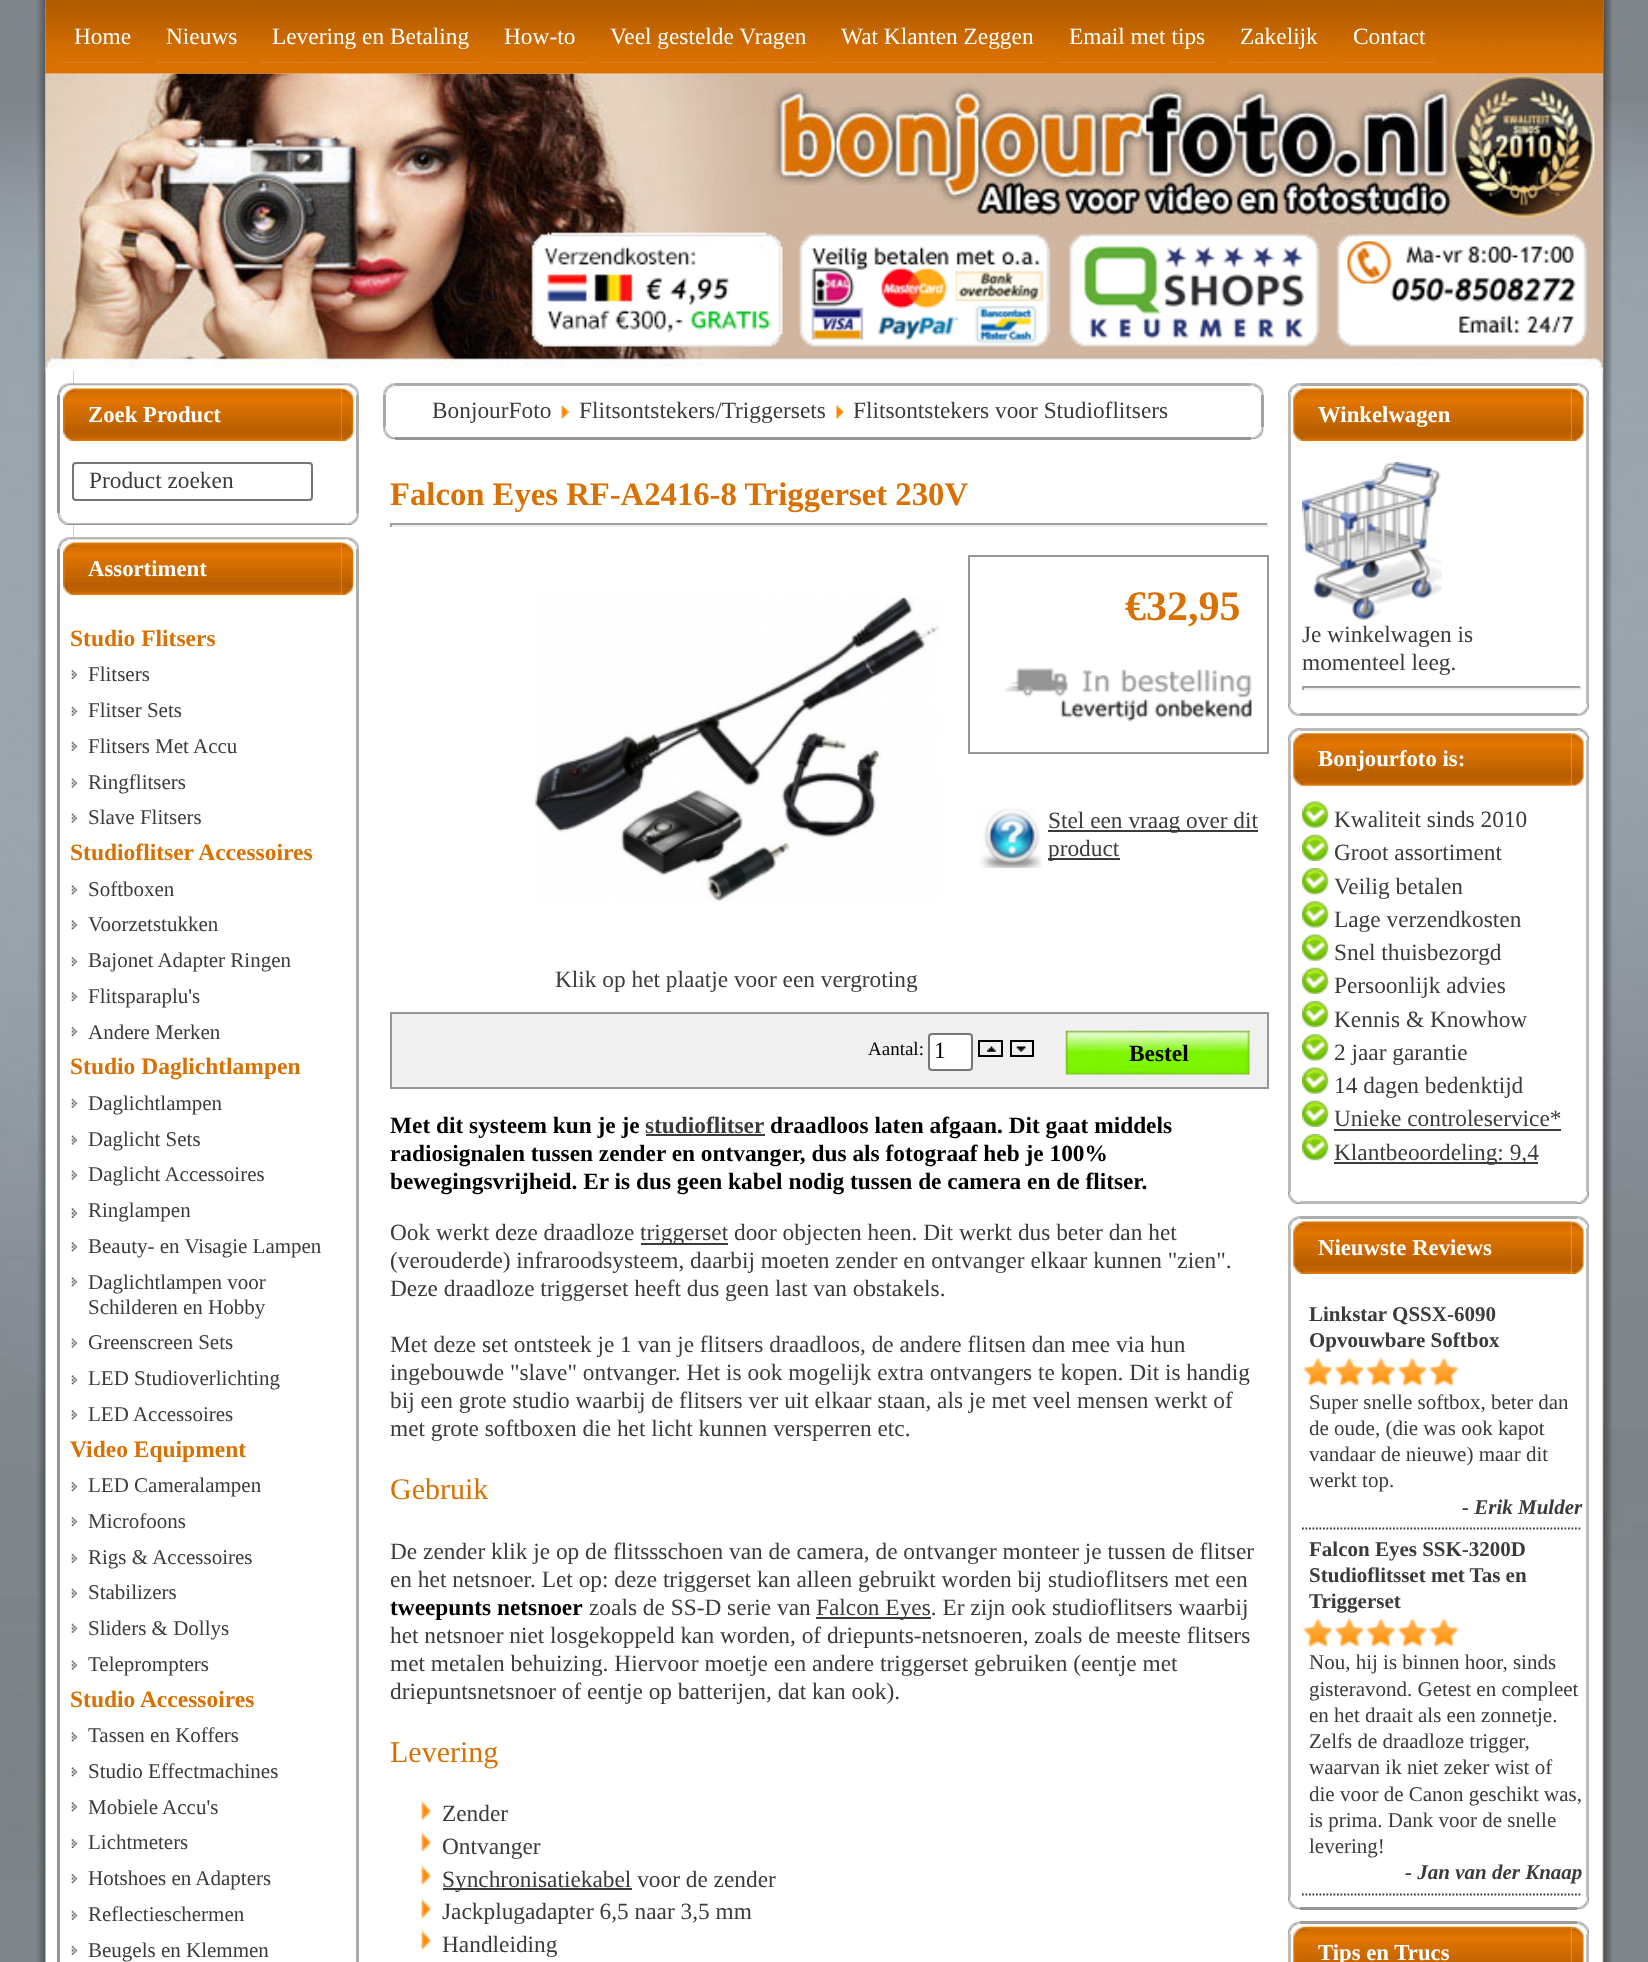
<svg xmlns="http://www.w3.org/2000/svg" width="1648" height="1962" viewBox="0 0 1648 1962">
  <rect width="100%" height="100%" fill="rgb(125,132,138)"/>
  <image x="0" y="102" width="1648" height="1775" href="pic1.png"/>
  <image x="37" y="0" width="9" height="28" href="pic2.png"/>
  <image x="1603" y="0" width="9" height="28" href="pic3.png"/>
  <image x="37" y="28" width="37" height="1934" href="pic4.png"/>
  <image x="1575" y="28" width="37" height="1934" href="pic81.png"/>
  <rect x="74" y="73" width="1501" height="1889" fill="rgb(255,255,255)"/>
  <image x="45" y="73" width="1558" height="298" href="pic20.png"/>
  <image x="45" y="0" width="1558" height="74" href="pic5.png"/>
  <text x="74" y="44" font-family="Liberation Serif" font-size="23.35" fill="rgb(255,255,255)">Home</text>
  <image x="61" y="62" width="79" height="1" href="pic6.png"/>
  <image x="140" y="62" width="4" height="1" href="pic7.png"/>
  <text x="166" y="44" font-family="Liberation Serif" font-size="23.35" fill="rgb(255,255,255)">Nieuws</text>
  <image x="154" y="62" width="91" height="1" href="pic8.png"/>
  <image x="245" y="62" width="4" height="1" href="pic7.png"/>
  <text x="272" y="44" font-family="Liberation Serif" font-size="23.35" fill="rgb(255,255,255)">Levering en Betaling</text>
  <image x="259" y="62" width="219" height="1" href="pic9.png"/>
  <image x="477" y="62" width="5" height="1" href="pic10.png"/>
  <text x="504" y="44" font-family="Liberation Serif" font-size="23.35" fill="rgb(255,255,255)">How-to</text>
  <image x="492" y="62" width="93" height="1" href="pic11.png"/>
  <image x="584" y="62" width="4" height="1" href="pic12.png"/>
  <text x="610" y="44" font-family="Liberation Serif" font-size="23.35" fill="rgb(255,255,255)">Veel gestelde Vragen</text>
  <image x="598" y="62" width="218" height="1" href="pic13.png"/>
  <image x="815" y="62" width="4" height="1" href="pic12.png"/>
  <text x="841" y="44" font-family="Liberation Serif" font-size="23.35" fill="rgb(255,255,255)">Wat Klanten Zeggen</text>
  <image x="829" y="62" width="214" height="1" href="pic14.png"/>
  <image x="1043" y="62" width="4" height="1" href="pic15.png"/>
  <text x="1069" y="44" font-family="Liberation Serif" font-size="23.35" fill="rgb(255,255,255)">Email met tips</text>
  <image x="1057" y="62" width="156" height="1" href="pic16.png"/>
  <image x="1212" y="62" width="5" height="1" href="pic10.png"/>
  <text x="1240" y="44" font-family="Liberation Serif" font-size="23.35" fill="rgb(255,255,255)">Zakelijk</text>
  <image x="1227" y="62" width="100" height="1" href="pic17.png"/>
  <image x="1326" y="62" width="4" height="1" href="pic12.png"/>
  <text x="1353" y="44" font-family="Liberation Serif" font-size="23.35" fill="rgb(255,255,255)">Contact</text>
  <image x="1340" y="62" width="94" height="1" href="pic18.png"/>
  <image x="1433" y="62" width="4" height="1" href="pic19.png"/>
  <image x="531" y="232" width="252" height="115" href="pic21.png"/>
  <image x="799" y="233" width="252" height="114" href="pic22.png"/>
  <image x="1069" y="233" width="251" height="114" href="pic23.png"/>
  <image x="1336" y="233" width="252" height="114" href="pic24.png"/>
  <image x="57" y="383" width="13" height="13" href="pic25.png"/>
  <image x="346" y="383" width="13" height="13" href="pic27.png"/>
  <image x="70" y="383" width="277" height="13" href="pic26.png"/>
  <image x="57" y="512" width="13" height="13" href="pic30.png"/>
  <rect x="57" y="395" width="3" height="118" fill="rgb(150,150,150)"/>
  <rect x="73" y="396" width="1" height="117" fill="rgb(255,255,255)"/>
  <image x="63" y="388" width="279" height="53" href="pic28.png"/>
  <image x="341" y="388" width="13" height="53" href="pic29.png"/>
  <text x="88" y="422" font-family="Liberation Serif" font-size="22.75" font-weight="bold" fill="rgb(255,255,255)">Zoek Product</text>
  <rect x="73" y="463" width="239" height="37" rx="3" fill="none" stroke="rgb(118,118,118)" stroke-width="2"/>
  <text x="89" y="488" font-family="Liberation Serif" font-size="23.35" fill="rgb(59,59,59)">Product zoeken</text>
  <image x="346" y="512" width="13" height="13" href="pic32.png"/>
  <rect x="356" y="395" width="3" height="118" fill="rgb(172,172,172)"/>
  <image x="70" y="513" width="277" height="12" href="pic31.png"/>
  <image x="57" y="537" width="13" height="13" href="pic25.png"/>
  <image x="346" y="537" width="13" height="13" href="pic27.png"/>
  <image x="70" y="537" width="277" height="13" href="pic26.png"/>
  <rect x="57" y="549" width="3" height="1413" fill="rgb(150,150,150)"/>
  <rect x="73" y="550" width="1" height="1412" fill="rgb(255,255,255)"/>
  <rect x="356" y="549" width="3" height="1413" fill="rgb(172,172,172)"/>
  <image x="63" y="542" width="279" height="53" href="pic28.png"/>
  <image x="341" y="542" width="13" height="53" href="pic29.png"/>
  <text x="88" y="576" font-family="Liberation Serif" font-size="22.75" font-weight="bold" fill="rgb(255,255,255)">Assortiment</text>
  <text x="70" y="646" font-family="Liberation Serif" font-size="23.5" font-weight="bold" fill="rgb(217,113,2)">Studio Flitsers</text>
  <image x="71" y="669" width="6" height="10" href="pic33.png"/>
  <text x="88" y="681" font-family="Liberation Serif" font-size="21" fill="rgb(59,59,59)">Flitsers</text>
  <image x="71" y="706" width="6" height="10" href="pic34.png"/>
  <text x="88" y="717" font-family="Liberation Serif" font-size="21" fill="rgb(59,59,59)">Flitser Sets</text>
  <image x="71" y="741" width="6" height="10" href="pic34.png"/>
  <text x="88" y="753" font-family="Liberation Serif" font-size="21" fill="rgb(59,59,59)">Flitsers Met Accu</text>
  <image x="71" y="778" width="6" height="10" href="pic35.png"/>
  <text x="88" y="789" font-family="Liberation Serif" font-size="21" fill="rgb(59,59,59)">Ringflitsers</text>
  <image x="71" y="813" width="6" height="10" href="pic35.png"/>
  <text x="88" y="824" font-family="Liberation Serif" font-size="21" fill="rgb(59,59,59)">Slave Flitsers</text>
  <text x="70" y="860" font-family="Liberation Serif" font-size="23.5" font-weight="bold" fill="rgb(217,113,2)">Studioflitser Accessoires</text>
  <image x="71" y="885" width="6" height="10" href="pic36.png"/>
  <text x="88" y="896" font-family="Liberation Serif" font-size="21" fill="rgb(59,59,59)">Softboxen</text>
  <image x="71" y="920" width="6" height="10" href="pic36.png"/>
  <text x="88" y="931" font-family="Liberation Serif" font-size="21" fill="rgb(59,59,59)">Voorzetstukken</text>
  <image x="71" y="956" width="6" height="10" href="pic33.png"/>
  <text x="88" y="967" font-family="Liberation Serif" font-size="21" fill="rgb(59,59,59)">Bajonet Adapter Ringen</text>
  <image x="71" y="991" width="6" height="10" href="pic33.png"/>
  <text x="88" y="1003" font-family="Liberation Serif" font-size="21" fill="rgb(59,59,59)">Flitsparaplu's</text>
  <image x="71" y="1026" width="6" height="10" href="pic33.png"/>
  <text x="88" y="1039" font-family="Liberation Serif" font-size="21" fill="rgb(59,59,59)">Andere Merken</text>
  <text x="70" y="1074" font-family="Liberation Serif" font-size="23.5" font-weight="bold" fill="rgb(217,113,2)">Studio Daglichtlampen</text>
  <image x="71" y="1098" width="6" height="10" href="pic34.png"/>
  <text x="88" y="1110" font-family="Liberation Serif" font-size="21" fill="rgb(59,59,59)">Daglichtlampen</text>
  <image x="71" y="1135" width="6" height="10" href="pic35.png"/>
  <text x="88" y="1146" font-family="Liberation Serif" font-size="21" fill="rgb(59,59,59)">Daglicht Sets</text>
  <image x="71" y="1170" width="6" height="10" href="pic35.png"/>
  <text x="88" y="1181" font-family="Liberation Serif" font-size="21" fill="rgb(59,59,59)">Daglicht Accessoires</text>
  <image x="71" y="1208" width="6" height="10" href="pic37.png"/>
  <text x="88" y="1217" font-family="Liberation Serif" font-size="21" fill="rgb(59,59,59)">Ringlampen</text>
  <image x="71" y="1242" width="6" height="10" href="pic36.png"/>
  <text x="88" y="1253" font-family="Liberation Serif" font-size="21" fill="rgb(59,59,59)">Beauty- en Visagie Lampen</text>
  <image x="71" y="1277" width="6" height="10" href="pic36.png"/>
  <g font-family="Liberation Serif" font-size="21" fill="rgb(59,59,59)">
    <text>
      <tspan x="88" y="1289">Daglichtlampen voor</tspan>
      <tspan x="88" y="1314">Schilderen en Hobby</tspan>
    </text>
  </g>
  <image x="71" y="1338" width="6" height="10" href="pic35.png"/>
  <text x="88" y="1349" font-family="Liberation Serif" font-size="21" fill="rgb(59,59,59)">Greenscreen Sets</text>
  <image x="71" y="1375" width="6" height="10" href="pic36.png"/>
  <text x="88" y="1385" font-family="Liberation Serif" font-size="21" fill="rgb(59,59,59)">LED Studioverlichting</text>
  <image x="71" y="1410" width="6" height="10" href="pic36.png"/>
  <text x="88" y="1421" font-family="Liberation Serif" font-size="21" fill="rgb(59,59,59)">LED Accessoires</text>
  <text x="70" y="1457" font-family="Liberation Serif" font-size="23.5" font-weight="bold" fill="rgb(217,113,2)">Video Equipment</text>
  <image x="71" y="1481" width="6" height="10" href="pic33.png"/>
  <text x="88" y="1492" font-family="Liberation Serif" font-size="21" fill="rgb(59,59,59)">LED Cameralampen</text>
  <image x="71" y="1516" width="6" height="10" href="pic33.png"/>
  <text x="88" y="1528" font-family="Liberation Serif" font-size="21" fill="rgb(59,59,59)">Microfoons</text>
  <image x="71" y="1553" width="6" height="10" href="pic34.png"/>
  <text x="88" y="1564" font-family="Liberation Serif" font-size="21" fill="rgb(59,59,59)">Rigs &amp; Accessoires</text>
  <image x="71" y="1588" width="6" height="10" href="pic34.png"/>
  <text x="88" y="1599" font-family="Liberation Serif" font-size="21" fill="rgb(59,59,59)">Stabilizers</text>
  <image x="71" y="1623" width="6" height="10" href="pic34.png"/>
  <text x="88" y="1635" font-family="Liberation Serif" font-size="21" fill="rgb(59,59,59)">Sliders &amp; Dollys</text>
  <image x="71" y="1660" width="6" height="10" href="pic35.png"/>
  <text x="88" y="1671" font-family="Liberation Serif" font-size="21" fill="rgb(59,59,59)">Teleprompters</text>
  <text x="70" y="1707" font-family="Liberation Serif" font-size="23.5" font-weight="bold" fill="rgb(217,113,2)">Studio Accessoires</text>
  <image x="71" y="1732" width="6" height="10" href="pic36.png"/>
  <text x="88" y="1742" font-family="Liberation Serif" font-size="21" fill="rgb(59,59,59)">Tassen en Koffers</text>
  <image x="71" y="1767" width="6" height="10" href="pic36.png"/>
  <text x="88" y="1778" font-family="Liberation Serif" font-size="21" fill="rgb(59,59,59)">Studio Effectmachines</text>
  <image x="71" y="1802" width="6" height="10" href="pic36.png"/>
  <text x="88" y="1814" font-family="Liberation Serif" font-size="21" fill="rgb(59,59,59)">Mobiele Accu's</text>
  <image x="71" y="1838" width="6" height="10" href="pic38.png"/>
  <text x="88" y="1849" font-family="Liberation Serif" font-size="21" fill="rgb(59,59,59)">Lichtmeters</text>
  <image x="71" y="1873" width="6" height="10" href="pic33.png"/>
  <text x="88" y="1885" font-family="Liberation Serif" font-size="21" fill="rgb(59,59,59)">Hotshoes en Adapters</text>
  <image x="71" y="1910" width="6" height="10" href="pic34.png"/>
  <text x="88" y="1921" font-family="Liberation Serif" font-size="21" fill="rgb(59,59,59)">Reflectieschermen</text>
  <image x="71" y="1945" width="6" height="10" href="pic34.png"/>
  <text x="88" y="1957" font-family="Liberation Serif" font-size="21" fill="rgb(59,59,59)">Beugels en Klemmen</text>
  <image x="383" y="383" width="13" height="13" href="pic39.png"/>
  <rect x="395" y="383" width="856" height="3" fill="rgb(172,172,172)"/>
  <image x="1251" y="383" width="13" height="13" href="pic40.png"/>
  <rect x="383" y="395" width="3" height="32" fill="rgb(169,169,169)"/>
  <text x="432" y="418" font-family="Liberation Serif" font-size="23.35" fill="rgb(59,59,59)">BonjourFoto</text>
  <image x="561" y="405" width="9" height="14" href="pic41.png"/>
  <text x="579" y="418" font-family="Liberation Serif" font-size="23.35" fill="rgb(59,59,59)">Flitsontstekers/Triggersets</text>
  <image x="836" y="405" width="8" height="14" href="pic42.png"/>
  <text x="853" y="418" font-family="Liberation Serif" font-size="23.35" fill="rgb(59,59,59)">Flitsontstekers voor Studioflitsers</text>
  <rect x="1261" y="395" width="3" height="32" fill="rgb(163,163,163)"/>
  <image x="383" y="427" width="13" height="13" href="pic43.png"/>
  <rect x="395" y="437" width="856" height="3" fill="rgb(150,150,150)"/>
  <image x="1251" y="427" width="13" height="13" href="pic44.png"/>
  <text x="390" y="505" font-family="Liberation Serif" font-size="32.7" font-weight="bold" fill="rgb(217,113,2)">Falcon Eyes RF-A2416-8 Triggerset 230V</text>
  <rect x="390" y="523" width="879" height="2" fill="rgb(159,159,159)"/>
  <rect x="1267" y="523" width="2" height="4" fill="rgb(238,238,238)"/>
  <rect x="390" y="525" width="879" height="2" fill="rgb(238,238,238)"/>
  <rect x="390" y="523" width="2" height="4" fill="rgb(159,159,159)"/>
  <rect x="969" y="556" width="299" height="197" fill="none" stroke="rgb(150,150,150)" stroke-width="2"/>
  <text x="1125" y="620" font-family="Liberation Serif" font-size="42" font-weight="bold" fill="rgb(217,113,2)">€32,95</text>
  <image x="1004" y="668" width="248" height="54" href="pic45.png"/>
  <image x="980" y="808" width="62" height="60" href="pic46.png"/>
  <rect x="1048" y="830" width="210" height="2" fill="rgb(59,59,59)"/>
  <text x="1048" y="828" font-family="Liberation Serif" font-size="23.35" fill="rgb(59,59,59)">Stel een vraag over dit</text>
  <rect x="1048" y="858" width="72" height="2" fill="rgb(59,59,59)"/>
  <text x="1048" y="856" font-family="Liberation Serif" font-size="23.35" fill="rgb(59,59,59)">product</text>
  <image x="534" y="596" width="406" height="306" href="pic47.png"/>
  <text x="555" y="987" font-family="Liberation Serif" font-size="23.35" fill="rgb(59,59,59)">Klik op het plaatje voor een vergroting</text>
  <rect x="391" y="1013" width="877" height="75" fill="rgb(240,240,240)" stroke="rgb(150,150,150)" stroke-width="2"/>
  <text x="868" y="1055" font-family="Liberation Serif" font-size="19" fill="rgb(0,0,0)">Aantal:</text>
  <rect x="929" y="1034" width="43" height="36" rx="3" fill="rgb(255,255,255)" stroke="rgb(118,118,118)" stroke-width="2"/>
  <text x="934" y="1058" font-family="Liberation Serif" font-size="23.35" fill="rgb(0,0,0)">1</text>
  <image x="987" y="1046" width="9" height="6" href="pic48.png"/>
  <rect x="979" y="1041" width="23" height="15" fill="none" stroke="rgb(0,0,0)" stroke-width="2"/>
  <image x="1016" y="1046" width="10" height="6" href="pic49.png"/>
  <rect x="1011" y="1041" width="22" height="15" fill="none" stroke="rgb(0,0,0)" stroke-width="2"/>
  <image x="1065" y="1030" width="185" height="45" href="pic50.png"/>
  <g font-family="Liberation Serif" font-size="23.35" font-weight="bold" fill="rgb(0,0,0)">
    <text x="1129" y="1061">Bestel</text>
    <text x="390" y="1133">Met dit systeem kun je je</text>
  </g>
  <text x="645" y="1133" font-family="Liberation Serif" font-size="23.35" font-weight="bold" fill="rgb(59,59,59)">studioflitser</text>
  <rect x="646" y="1134" width="119" height="2" fill="rgb(59,59,59)"/>
  <g font-family="Liberation Serif" font-size="23.35" font-weight="bold" fill="rgb(0,0,0)">
    <text x="770" y="1133">draadloos laten afgaan. Dit gaat middels</text>
    <text>
      <tspan x="390" y="1161">radiosignalen tussen zender en ontvanger, dus als fotograaf heb je 100%</tspan>
      <tspan x="390" y="1189">bewegingsvrijheid. Er is dus geen kabel nodig tussen de camera en de flitser.</tspan>
    </text>
  </g>
  <text x="390" y="1240" font-family="Liberation Serif" font-size="23.35" fill="rgb(59,59,59)">Ook werkt deze draadloze</text>
  <rect x="641" y="1243" width="87" height="2" fill="rgb(59,59,59)"/>
  <g font-family="Liberation Serif" font-size="23.35" fill="rgb(59,59,59)">
    <text x="640" y="1240">triggerset door objecten heen. Dit werkt dus beter dan het</text>
    <text>
      <tspan x="390" y="1268">(verouderde) infraroodsysteem, daarbij moeten zender en ontvanger elkaar kunnen "zien".</tspan>
      <tspan x="390" y="1296">Deze draadloze triggerset heeft dus geen last van obstakels.</tspan>
    </text>
    <text>
      <tspan x="390" y="1352">Met deze set ontsteek je 1 van je flitsers draadloos, de andere flitsen dan mee via hun</tspan>
      <tspan x="390" y="1380">ingebouwde "slave" ontvanger. Het is ook mogelijk extra ontvangers te kopen. Dit is handig</tspan>
      <tspan x="390" y="1408">bij een grote studio waarbij de flitsers ver uit elkaar staan, als je met veel mensen werkt of</tspan>
      <tspan x="390" y="1436">met grote softboxen die het licht kunnen versperren etc.</tspan>
    </text>
  </g>
  <text x="390" y="1499" font-family="Liberation Serif" font-size="30" fill="rgb(217,113,2)">Gebruik</text>
  <g font-family="Liberation Serif" font-size="23.35" fill="rgb(59,59,59)">
    <text>
      <tspan x="390" y="1559">De zender klik je op de flitssschoen van de camera, de ontvanger monteer je tussen de flitser</tspan>
      <tspan x="390" y="1587">en het netsnoer. Let op: deze triggerset kan alleen gebruikt worden bij studioflitsers met een</tspan>
    </text>
  </g>
  <text x="390" y="1615" font-family="Liberation Serif" font-size="23.35" font-weight="bold" fill="rgb(0,0,0)">tweepunts netsnoer</text>
  <text x="589" y="1615" font-family="Liberation Serif" font-size="23.35" fill="rgb(59,59,59)">zoals de SS-D serie van</text>
  <rect x="816" y="1617" width="115" height="2" fill="rgb(59,59,59)"/>
  <g font-family="Liberation Serif" font-size="23.35" fill="rgb(59,59,59)">
    <text x="816" y="1615">Falcon Eyes. Er zijn ook studioflitsers waarbij</text>
    <text>
      <tspan x="390" y="1643">het netsnoer niet losgekoppeld kan worden, of driepunts-netsnoeren, zoals de meeste flitsers</tspan>
      <tspan x="390" y="1671">met metalen behuizing. Hiervoor moetje een andere triggerset gebruiken (eentje met</tspan>
      <tspan x="390" y="1699">driepuntsnetsnoer of eentje op batterijen, dat kan ook).</tspan>
    </text>
  </g>
  <text x="390" y="1762" font-family="Liberation Serif" font-size="30" fill="rgb(217,113,2)">Levering</text>
  <image x="421" y="1800" width="10" height="20" href="pic51.png"/>
  <text x="442" y="1821" font-family="Liberation Serif" font-size="23.35" fill="rgb(59,59,59)">Zender</text>
  <image x="421" y="1832" width="10" height="20" href="pic52.png"/>
  <text x="442" y="1854" font-family="Liberation Serif" font-size="23.35" fill="rgb(59,59,59)">Ontvanger</text>
  <image x="421" y="1865" width="10" height="20" href="pic53.png"/>
  <rect x="443" y="1888" width="189" height="2" fill="rgb(59,59,59)"/>
  <text x="442" y="1887" font-family="Liberation Serif" font-size="23.35" fill="rgb(59,59,59)">Synchronisatiekabel voor de zender</text>
  <image x="421" y="1898" width="10" height="20" href="pic54.png"/>
  <text x="442" y="1919" font-family="Liberation Serif" font-size="23.35" fill="rgb(59,59,59)">Jackplugadapter 6,5 naar 3,5 mm</text>
  <image x="421" y="1930" width="10" height="20" href="pic55.png"/>
  <text x="442" y="1952" font-family="Liberation Serif" font-size="23.35" fill="rgb(59,59,59)">Handleiding</text>
  <image x="1288" y="383" width="13" height="13" href="pic56.png"/>
  <image x="1576" y="383" width="13" height="13" href="pic57.png"/>
  <rect x="1300" y="383" width="277" height="3" fill="rgb(172,172,172)"/>
  <image x="1288" y="703" width="13" height="13" href="pic61.png"/>
  <rect x="1288" y="395" width="3" height="309" fill="rgb(187,187,187)"/>
  <image x="1293" y="388" width="279" height="53" href="pic58.png"/>
  <image x="1571" y="388" width="13" height="53" href="pic59.png"/>
  <text x="1318" y="422" font-family="Liberation Serif" font-size="22.75" font-weight="bold" fill="rgb(255,255,255)">Winkelwagen</text>
  <image x="1302" y="462" width="140" height="158" href="pic60.png"/>
  <g font-family="Liberation Serif" font-size="23.35" fill="rgb(59,59,59)">
    <text>
      <tspan x="1302" y="642">Je winkelwagen is</tspan>
      <tspan x="1302" y="670">momenteel leeg.</tspan>
    </text>
  </g>
  <rect x="1302" y="686" width="280" height="2" fill="rgb(159,159,159)"/>
  <rect x="1580" y="686" width="2" height="4" fill="rgb(238,238,238)"/>
  <rect x="1302" y="688" width="280" height="2" fill="rgb(238,238,238)"/>
  <rect x="1302" y="686" width="2" height="4" fill="rgb(159,159,159)"/>
  <image x="1576" y="703" width="13" height="13" href="pic62.png"/>
  <rect x="1586" y="395" width="3" height="309" fill="rgb(187,187,187)"/>
  <rect x="1300" y="713" width="277" height="3" fill="rgb(172,172,172)"/>
  <image x="1288" y="728" width="13" height="13" href="pic63.png"/>
  <image x="1576" y="728" width="13" height="13" href="pic64.png"/>
  <rect x="1300" y="728" width="277" height="3" fill="rgb(187,187,187)"/>
  <image x="1288" y="1191" width="13" height="13" href="pic71.png"/>
  <rect x="1288" y="740" width="3" height="452" fill="rgb(187,187,187)"/>
  <image x="1293" y="733" width="279" height="53" href="pic65.png"/>
  <image x="1571" y="733" width="13" height="53" href="pic66.png"/>
  <text x="1318" y="766" font-family="Liberation Serif" font-size="22.75" font-weight="bold" fill="rgb(255,255,255)">Bonjourfoto is:</text>
  <image x="1302" y="801" width="27" height="27" href="pic67.png"/>
  <text x="1334" y="827" font-family="Liberation Serif" font-size="23.35" fill="rgb(59,59,59)">Kwaliteit sinds 2010</text>
  <image x="1302" y="834" width="27" height="27" href="pic68.png"/>
  <text x="1334" y="860" font-family="Liberation Serif" font-size="23.35" fill="rgb(59,59,59)">Groot assortiment</text>
  <image x="1302" y="868" width="27" height="27" href="pic69.png"/>
  <text x="1334" y="894" font-family="Liberation Serif" font-size="23.35" fill="rgb(59,59,59)">Veilig betalen</text>
  <image x="1302" y="901" width="27" height="27" href="pic70.png"/>
  <text x="1334" y="927" font-family="Liberation Serif" font-size="23.35" fill="rgb(59,59,59)">Lage verzendkosten</text>
  <image x="1302" y="934" width="27" height="27" href="pic67.png"/>
  <text x="1334" y="960" font-family="Liberation Serif" font-size="23.35" fill="rgb(59,59,59)">Snel thuisbezorgd</text>
  <image x="1302" y="967" width="27" height="27" href="pic68.png"/>
  <text x="1334" y="993" font-family="Liberation Serif" font-size="23.35" fill="rgb(59,59,59)">Persoonlijk advies</text>
  <image x="1302" y="1001" width="27" height="27" href="pic69.png"/>
  <text x="1334" y="1027" font-family="Liberation Serif" font-size="23.35" fill="rgb(59,59,59)">Kennis &amp; Knowhow</text>
  <image x="1302" y="1034" width="27" height="27" href="pic70.png"/>
  <text x="1334" y="1060" font-family="Liberation Serif" font-size="23.35" fill="rgb(59,59,59)">2 jaar garantie</text>
  <image x="1302" y="1067" width="27" height="27" href="pic67.png"/>
  <text x="1334" y="1093" font-family="Liberation Serif" font-size="23.35" fill="rgb(59,59,59)">14 dagen bedenktijd</text>
  <image x="1302" y="1100" width="27" height="27" href="pic68.png"/>
  <text x="1334" y="1126" font-family="Liberation Serif" font-size="23.35" fill="rgb(59,59,59)">Unieke controleservice*</text>
  <rect x="1334" y="1129" width="227" height="2" fill="rgb(59,59,59)"/>
  <image x="1302" y="1134" width="27" height="27" href="pic69.png"/>
  <rect x="1334" y="1162" width="204" height="2" fill="rgb(59,59,59)"/>
  <text x="1334" y="1160" font-family="Liberation Serif" font-size="23.35" fill="rgb(59,59,59)">Klantbeoordeling: 9,4</text>
  <image x="1576" y="1191" width="13" height="13" href="pic72.png"/>
  <rect x="1586" y="740" width="3" height="452" fill="rgb(187,187,187)"/>
  <rect x="1300" y="1201" width="277" height="3" fill="rgb(187,187,187)"/>
  <image x="1288" y="1216" width="13" height="13" href="pic56.png"/>
  <image x="1576" y="1216" width="13" height="13" href="pic57.png"/>
  <rect x="1300" y="1216" width="277" height="3" fill="rgb(173,173,173)"/>
  <rect x="1288" y="1228" width="3" height="669" fill="rgb(187,187,187)"/>
  <image x="1293" y="1221" width="279" height="53" href="pic58.png"/>
  <image x="1571" y="1221" width="13" height="53" href="pic59.png"/>
  <text x="1318" y="1255" font-family="Liberation Serif" font-size="22.75" font-weight="bold" fill="rgb(255,255,255)">Nieuwste Reviews</text>
  <path d="M1302 1528.5H1582" fill="none" stroke="rgb(59,59,59)" stroke-width="1.8" stroke-dasharray="1.75 1.75"/>
  <g font-family="Liberation Serif" font-size="21" font-weight="bold" fill="rgb(59,59,59)">
    <text>
      <tspan x="1309" y="1321">Linkstar QSSX-6090</tspan>
      <tspan x="1309" y="1347">Opvouwbare Softbox</tspan>
    </text>
  </g>
  <image x="1303" y="1357" width="156" height="30" href="pic73.png"/>
  <g font-family="Liberation Serif" font-size="21" fill="rgb(59,59,59)">
    <text>
      <tspan x="1309" y="1409">Super snelle softbox, beter dan</tspan>
      <tspan x="1309" y="1435">de oude, (die was ook kapot</tspan>
      <tspan x="1309" y="1461">vandaar de nieuwe) maar dit</tspan>
      <tspan x="1309" y="1487">werkt top.</tspan>
    </text>
  </g>
  <text x="1462" y="1514" font-family="Liberation Serif" font-size="21" font-weight="bold" font-style="italic" fill="rgb(59,59,59)">- Erik Mulder</text>
  <path d="M1302 1894.5H1582" fill="none" stroke="rgb(59,59,59)" stroke-width="1.8" stroke-dasharray="1.75 1.75"/>
  <g font-family="Liberation Serif" font-size="21" font-weight="bold" fill="rgb(59,59,59)">
    <text>
      <tspan x="1309" y="1556">Falcon Eyes SSK-3200D</tspan>
      <tspan x="1309" y="1582">Studioflitsset met Tas en</tspan>
      <tspan x="1309" y="1608">Triggerset</tspan>
    </text>
  </g>
  <image x="1303" y="1618" width="156" height="30" href="pic74.png"/>
  <g font-family="Liberation Serif" font-size="21" fill="rgb(59,59,59)">
    <text>
      <tspan x="1309" y="1669">Nou, hij is binnen hoor, sinds</tspan>
      <tspan x="1309" y="1696">gisteravond. Getest en compleet</tspan>
      <tspan x="1309" y="1722">en het draait als een zonnetje.</tspan>
      <tspan x="1309" y="1748">Zelfs de draadloze trigger,</tspan>
      <tspan x="1309" y="1774">waarvan ik niet zeker wist of</tspan>
      <tspan x="1309" y="1801">die voor de Canon geschikt was,</tspan>
      <tspan x="1309" y="1827">is prima. Dank voor de snelle</tspan>
      <tspan x="1309" y="1853">levering!</tspan>
    </text>
  </g>
  <text x="1405" y="1879" font-family="Liberation Serif" font-size="21" font-weight="bold" font-style="italic" fill="rgb(59,59,59)">- Jan van der Knaap</text>
  <rect x="1586" y="1228" width="3" height="669" fill="rgb(187,187,187)"/>
  <image x="1288" y="1897" width="13" height="13" href="pic75.png"/>
  <image x="1576" y="1897" width="13" height="13" href="pic76.png"/>
  <rect x="1300" y="1907" width="277" height="3" fill="rgb(150,150,150)"/>
  <image x="1288" y="1921" width="13" height="13" href="pic77.png"/>
  <image x="1576" y="1921" width="13" height="13" href="pic78.png"/>
  <rect x="1300" y="1921" width="277" height="3" fill="rgb(158,158,158)"/>
  <rect x="1288" y="1934" width="3" height="28" fill="rgb(187,187,187)"/>
  <image x="1293" y="1926" width="279" height="36" href="pic79.png"/>
  <image x="1571" y="1926" width="13" height="36" href="pic80.png"/>
  <text x="1318" y="1960" font-family="Liberation Serif" font-size="22.75" font-weight="bold" fill="rgb(255,255,255)">Tips en Trucs</text>
  <rect x="1586" y="1934" width="3" height="28" fill="rgb(187,187,187)"/>
</svg>
